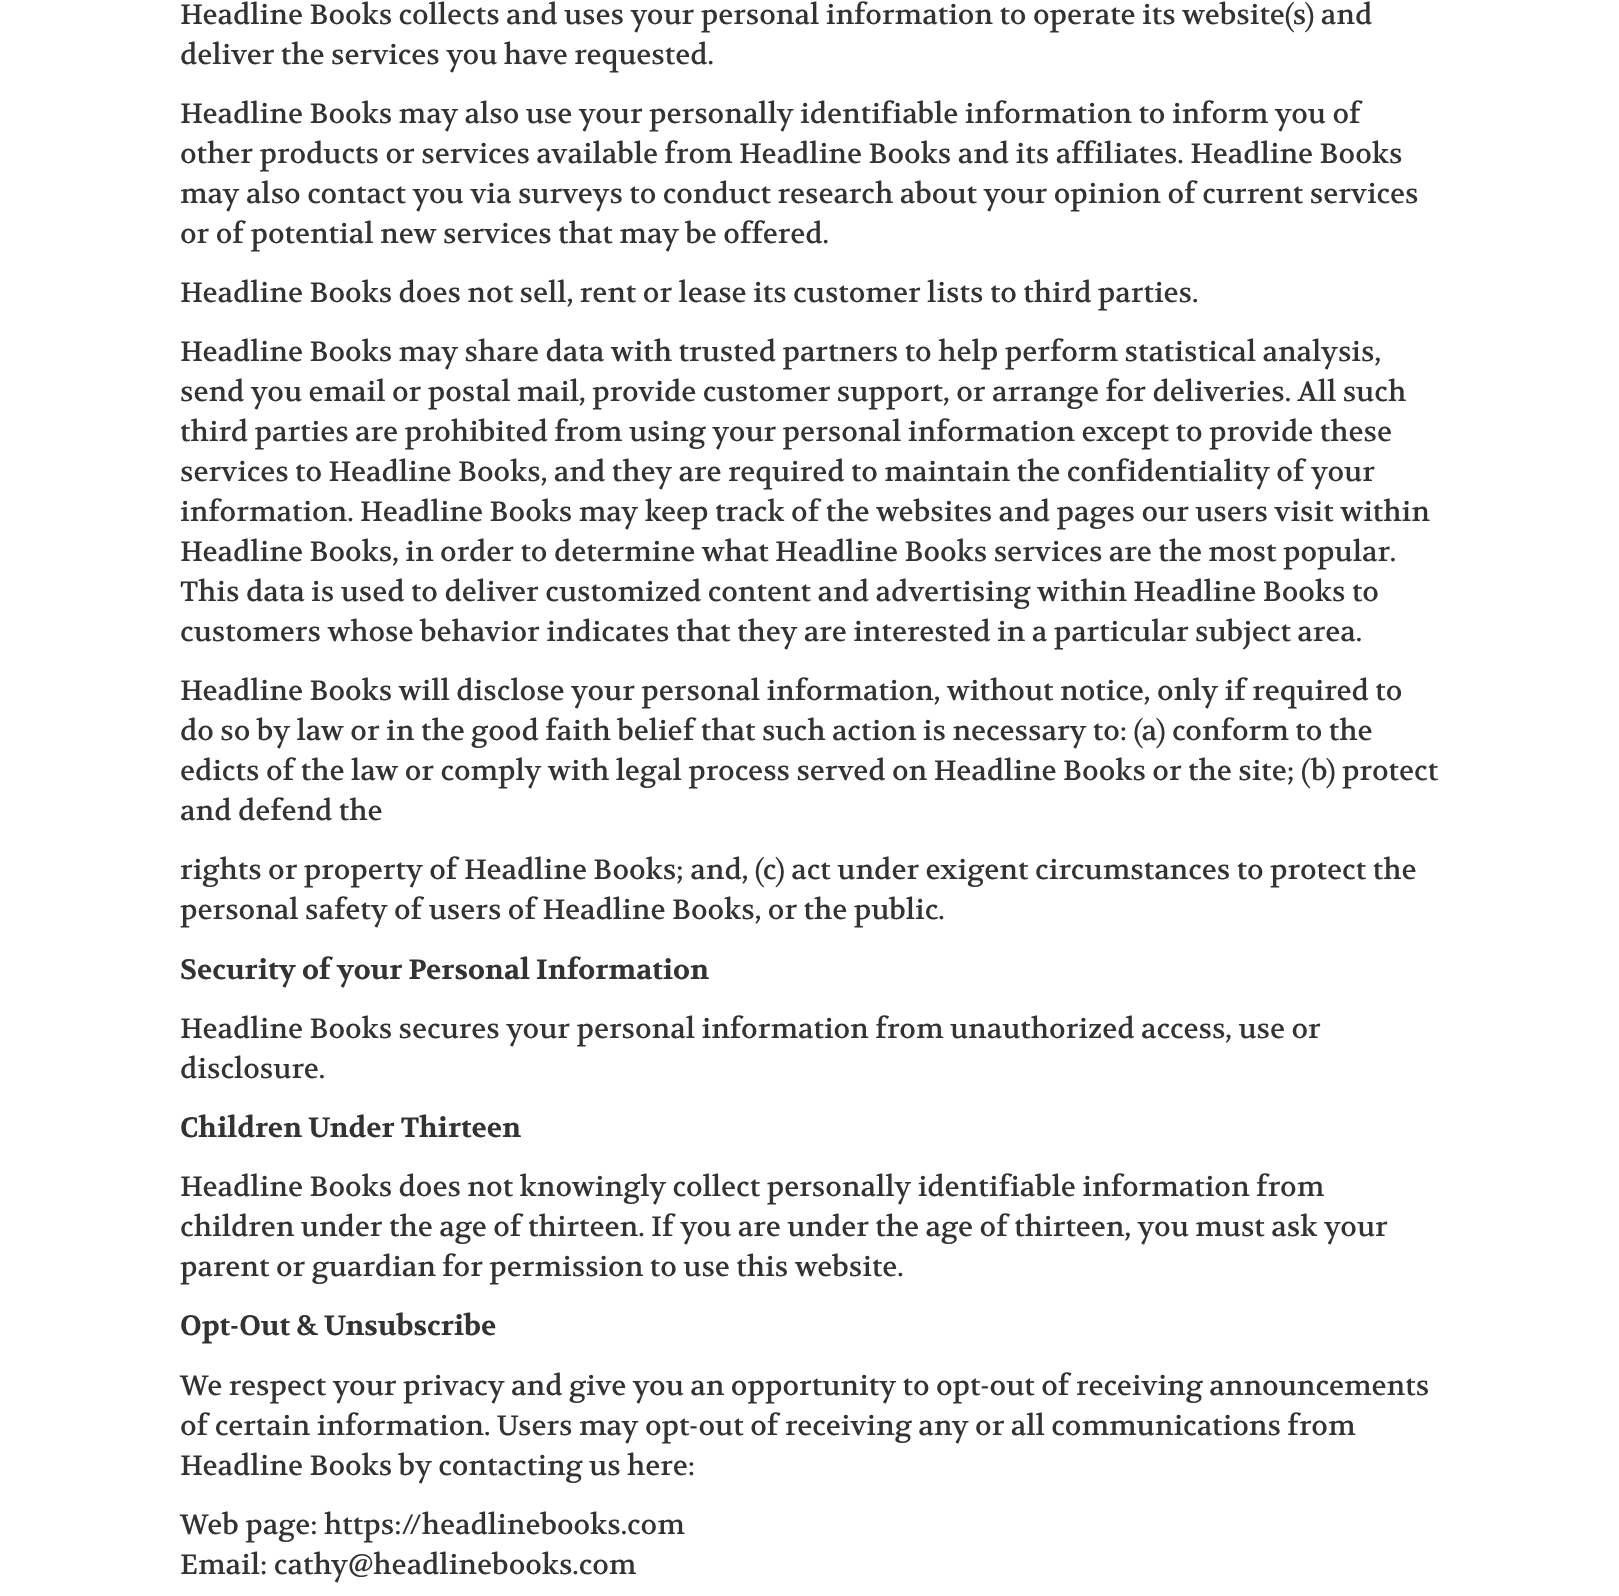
<svg xmlns="http://www.w3.org/2000/svg" width="1619" height="1596" viewBox="0 0 1619 1596">
  <rect width="100%" height="100%" fill="rgb(255,255,255)"/>
  <g font-family="Volkhov" font-size="28" fill="rgb(51,51,51)">
    <text>
      <tspan x="180" y="24">Headline Books collects and uses your personal information to operate its website(s) and</tspan>
      <tspan x="180" y="64">deliver the services you have requested.</tspan>
    </text>
    <text>
      <tspan x="180" y="123">Headline Books may also use your personally identifiable information to inform you of</tspan>
      <tspan x="180" y="163">other products or services available from Headline Books and its affiliates. Headline Books</tspan>
      <tspan x="180" y="203">may also contact you via surveys to conduct research about your opinion of current services</tspan>
      <tspan x="180" y="243">or of potential new services that may be offered.</tspan>
    </text>
    <text x="180" y="302">Headline Books does not sell, rent or lease its customer lists to third parties.</text>
    <text>
      <tspan x="180" y="361">Headline Books may share data with trusted partners to help perform statistical analysis,</tspan>
      <tspan x="180" y="401">send you email or postal mail, provide customer support, or arrange for deliveries. All such</tspan>
      <tspan x="180" y="441">third parties are prohibited from using your personal information except to provide these</tspan>
      <tspan x="180" y="481">services to Headline Books, and they are required to maintain the confidentiality of your</tspan>
      <tspan x="180" y="521">information. Headline Books may keep track of the websites and pages our users visit within</tspan>
      <tspan x="180" y="561">Headline Books, in order to determine what Headline Books services are the most popular.</tspan>
      <tspan x="180" y="601">This data is used to deliver customized content and advertising within Headline Books to</tspan>
      <tspan x="180" y="641">customers whose behavior indicates that they are interested in a particular subject area.</tspan>
    </text>
    <text>
      <tspan x="180" y="700">Headline Books will disclose your personal information, without notice, only if required to</tspan>
      <tspan x="180" y="740">do so by law or in the good faith belief that such action is necessary to: (a) conform to the</tspan>
      <tspan x="180" y="780">edicts of the law or comply with legal process served on Headline Books or the site; (b) protect</tspan>
      <tspan x="180" y="820">and defend the</tspan>
    </text>
    <text>
      <tspan x="180" y="879">rights or property of Headline Books; and, (c) act under exigent circumstances to protect the</tspan>
      <tspan x="180" y="919">personal safety of users of Headline Books, or the public.</tspan>
    </text>
  </g>
  <text x="180" y="979" font-family="Volkhov" font-size="28" font-weight="bold" fill="rgb(51,51,51)">Security of your Personal Information</text>
  <g font-family="Volkhov" font-size="28" fill="rgb(51,51,51)">
    <text>
      <tspan x="180" y="1038">Headline Books secures your personal information from unauthorized access, use or</tspan>
      <tspan x="180" y="1078">disclosure.</tspan>
    </text>
  </g>
  <text x="180" y="1137" font-family="Volkhov" font-size="28" font-weight="bold" fill="rgb(51,51,51)">Children Under Thirteen</text>
  <g font-family="Volkhov" font-size="28" fill="rgb(51,51,51)">
    <text>
      <tspan x="180" y="1196">Headline Books does not knowingly collect personally identifiable information from</tspan>
      <tspan x="180" y="1236">children under the age of thirteen. If you are under the age of thirteen, you must ask your</tspan>
      <tspan x="180" y="1276">parent or guardian for permission to use this website.</tspan>
    </text>
  </g>
  <text x="180" y="1335" font-family="Volkhov" font-size="28" font-weight="bold" fill="rgb(51,51,51)">Opt-Out &amp; Unsubscribe</text>
  <g font-family="Volkhov" font-size="28" fill="rgb(51,51,51)">
    <text>
      <tspan x="180" y="1395">We respect your privacy and give you an opportunity to opt-out of receiving announcements</tspan>
      <tspan x="180" y="1435">of certain information. Users may opt-out of receiving any or all communications from</tspan>
      <tspan x="180" y="1475">Headline Books by contacting us here:</tspan>
    </text>
    <text>
      <tspan x="180" y="1534">Web page: https://headlinebooks.com</tspan>
      <tspan x="180" y="1574">Email: cathy@headlinebooks.com</tspan>
    </text>
  </g>
</svg>
